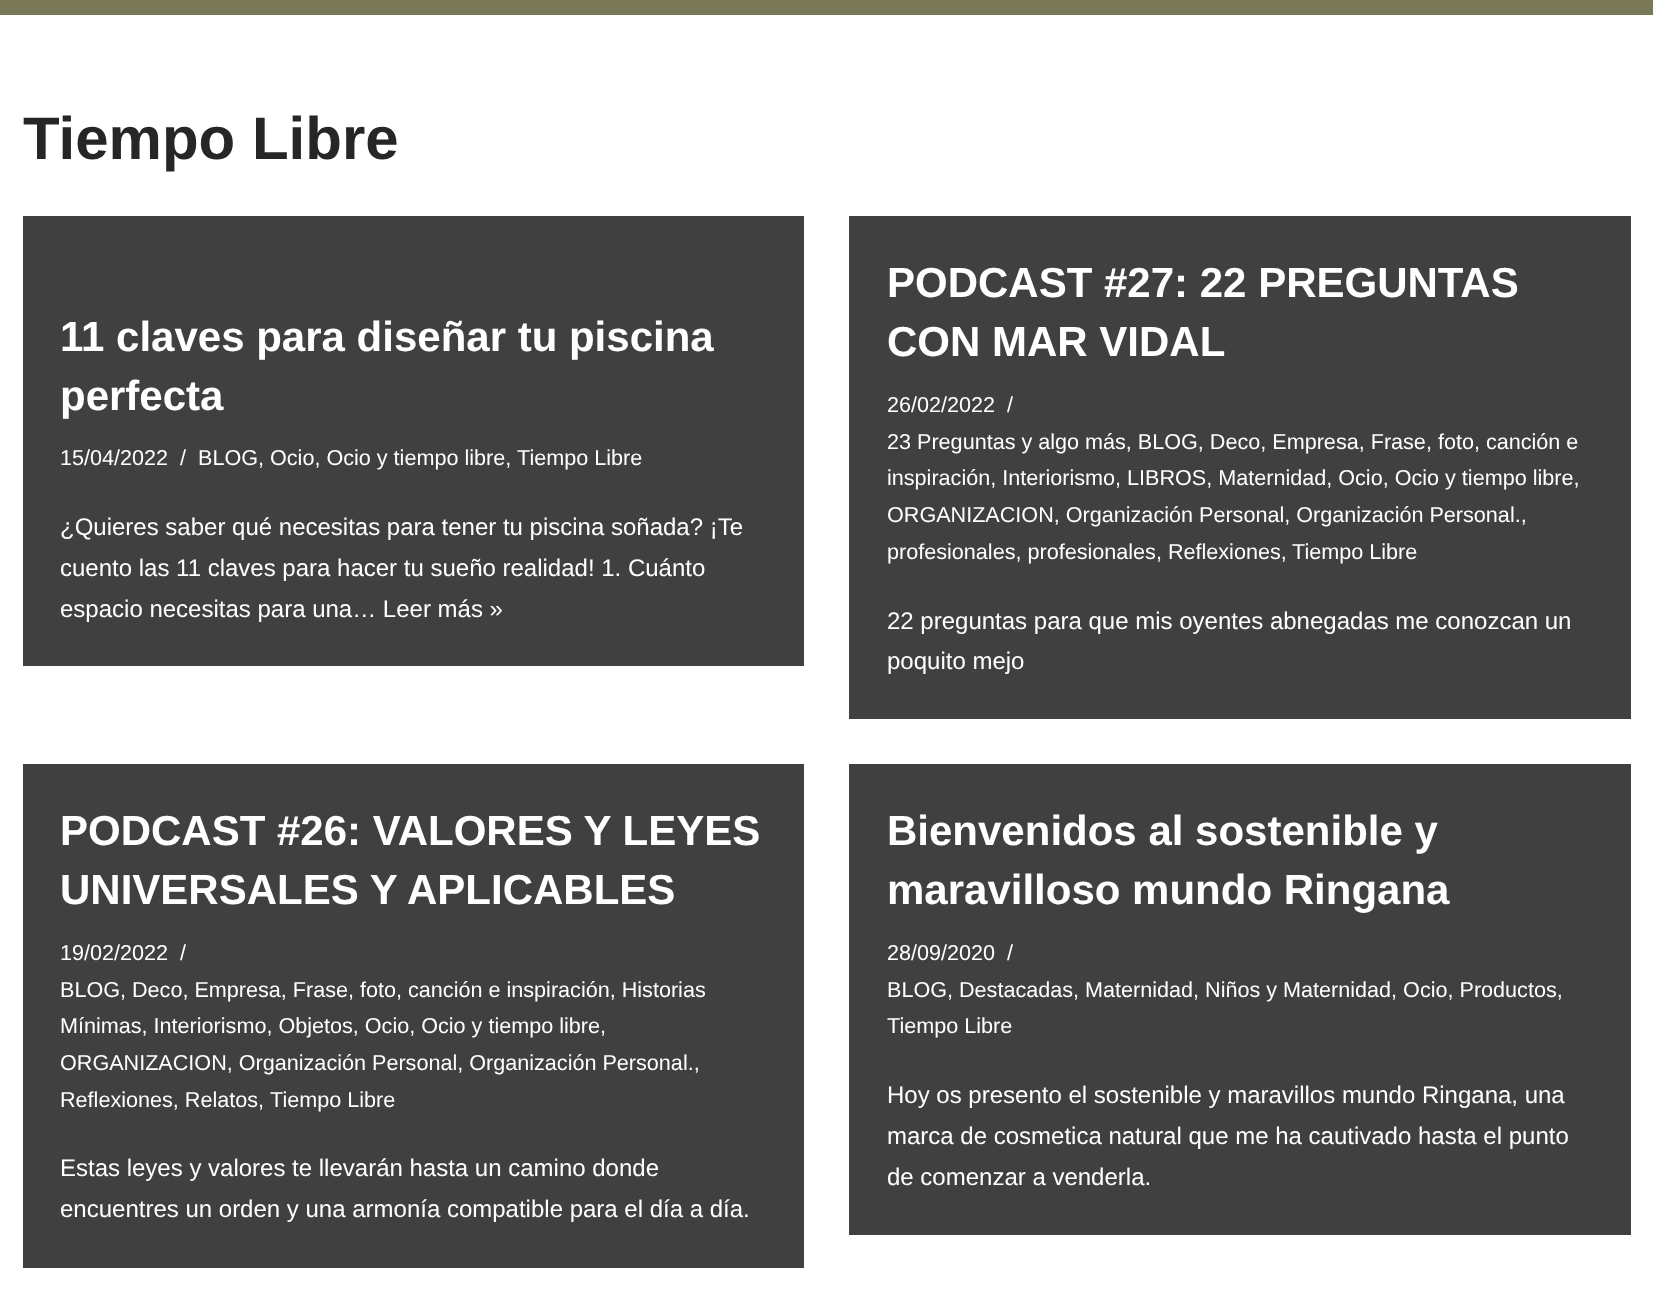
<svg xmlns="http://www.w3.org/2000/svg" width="1653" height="1299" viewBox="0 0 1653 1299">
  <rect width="100%" height="100%" fill="rgb(255,255,255)"/>
  <rect x="0" y="0" width="1653" height="15" fill="rgb(121,121,87)"/>
  <text x="23" y="159" font-family="Liberation Sans" font-size="60" font-weight="bold" fill="rgb(39,38,38)">Tiempo Libre</text>
  <rect x="23" y="216" width="781" height="450" fill="rgb(64,64,64)"/>
  <g font-family="Liberation Sans" font-size="42" font-weight="bold" fill="rgb(255,255,255)">
    <text>
      <tspan x="60" y="351">11 claves para diseñar tu piscina</tspan>
      <tspan x="60" y="410">perfecta</tspan>
    </text>
  </g>
  <g font-family="Liberation Sans" font-size="21.6" fill="rgb(255,255,255)">
    <text x="60" y="465">15/04/2022</text>
    <text x="180" y="465">/</text>
    <text x="198" y="465">BLOG, Ocio, Ocio y tiempo libre,</text>
    <text x="517" y="465">Tiempo Libre</text>
  </g>
  <g font-family="Liberation Sans" font-size="24" fill="rgb(255,255,255)">
    <text>
      <tspan x="60" y="535">¿Quieres saber qué necesitas para tener tu piscina soñada? ¡Te</tspan>
      <tspan x="60" y="576">cuento las 11 claves para hacer tu sueño realidad! 1. Cuánto</tspan>
      <tspan x="60" y="617">espacio necesitas para una… Leer más »</tspan>
    </text>
  </g>
  <rect x="849" y="216" width="782" height="503" fill="rgb(64,64,64)"/>
  <g font-family="Liberation Sans" font-size="42" font-weight="bold" fill="rgb(255,255,255)">
    <text>
      <tspan x="887" y="297">PODCAST #27: 22 PREGUNTAS</tspan>
      <tspan x="887" y="356">CON MAR VIDAL</tspan>
    </text>
  </g>
  <g font-family="Liberation Sans" font-size="21.6" fill="rgb(255,255,255)">
    <text x="887" y="412">26/02/2022</text>
    <text x="1007" y="412">/</text>
    <text>
      <tspan x="887" y="449">23 Preguntas y algo más, BLOG, Deco, Empresa, Frase, foto, canción e</tspan>
      <tspan x="887" y="485">inspiración, Interiorismo, LIBROS, Maternidad, Ocio, Ocio y tiempo libre,</tspan>
      <tspan x="887" y="522">ORGANIZACION, Organización Personal, Organización Personal.,</tspan>
      <tspan x="887" y="559">profesionales, profesionales, Reflexiones,</tspan>
    </text>
    <text x="1292" y="559">Tiempo Libre</text>
  </g>
  <g font-family="Liberation Sans" font-size="24" fill="rgb(255,255,255)">
    <text>
      <tspan x="887" y="629">22 preguntas para que mis oyentes abnegadas me conozcan un</tspan>
      <tspan x="887" y="669">poquito mejo</tspan>
    </text>
  </g>
  <rect x="23" y="764" width="781" height="504" fill="rgb(64,64,64)"/>
  <g font-family="Liberation Sans" font-size="42" font-weight="bold" fill="rgb(255,255,255)">
    <text>
      <tspan x="60" y="845">PODCAST #26: VALORES Y LEYES</tspan>
      <tspan x="60" y="904">UNIVERSALES Y APLICABLES</tspan>
    </text>
  </g>
  <g font-family="Liberation Sans" font-size="21.6" fill="rgb(255,255,255)">
    <text x="60" y="960">19/02/2022</text>
    <text x="180" y="960">/</text>
    <text>
      <tspan x="60" y="997">BLOG, Deco, Empresa, Frase, foto, canción e inspiración, Historias</tspan>
      <tspan x="60" y="1033">Mínimas, Interiorismo, Objetos, Ocio, Ocio y tiempo libre,</tspan>
      <tspan x="60" y="1070">ORGANIZACION, Organización Personal, Organización Personal.,</tspan>
      <tspan x="60" y="1107">Reflexiones, Relatos,</tspan>
    </text>
    <text x="270" y="1107">Tiempo Libre</text>
  </g>
  <g font-family="Liberation Sans" font-size="24" fill="rgb(255,255,255)">
    <text>
      <tspan x="60" y="1176">Estas leyes y valores te llevarán hasta un camino donde</tspan>
      <tspan x="60" y="1217">encuentres un orden y una armonía compatible para el día a día.</tspan>
    </text>
  </g>
  <rect x="849" y="764" width="782" height="471" fill="rgb(64,64,64)"/>
  <g font-family="Liberation Sans" font-size="42" font-weight="bold" fill="rgb(255,255,255)">
    <text>
      <tspan x="887" y="845">Bienvenidos al sostenible y</tspan>
      <tspan x="887" y="904">maravilloso mundo Ringana</tspan>
    </text>
  </g>
  <g font-family="Liberation Sans" font-size="21.6" fill="rgb(255,255,255)">
    <text x="887" y="960">28/09/2020</text>
    <text x="1007" y="960">/</text>
    <text>
      <tspan x="887" y="997">BLOG, Destacadas, Maternidad, Niños y Maternidad, Ocio, Productos,</tspan>
      <tspan x="887" y="1033">Tiempo Libre</tspan>
    </text>
  </g>
  <g font-family="Liberation Sans" font-size="24" fill="rgb(255,255,255)">
    <text>
      <tspan x="887" y="1103">Hoy os presento el sostenible y maravillos mundo Ringana, una</tspan>
      <tspan x="887" y="1144">marca de cosmetica natural que me ha cautivado hasta el punto</tspan>
      <tspan x="887" y="1185">de comenzar a venderla.</tspan>
    </text>
  </g>
</svg>
